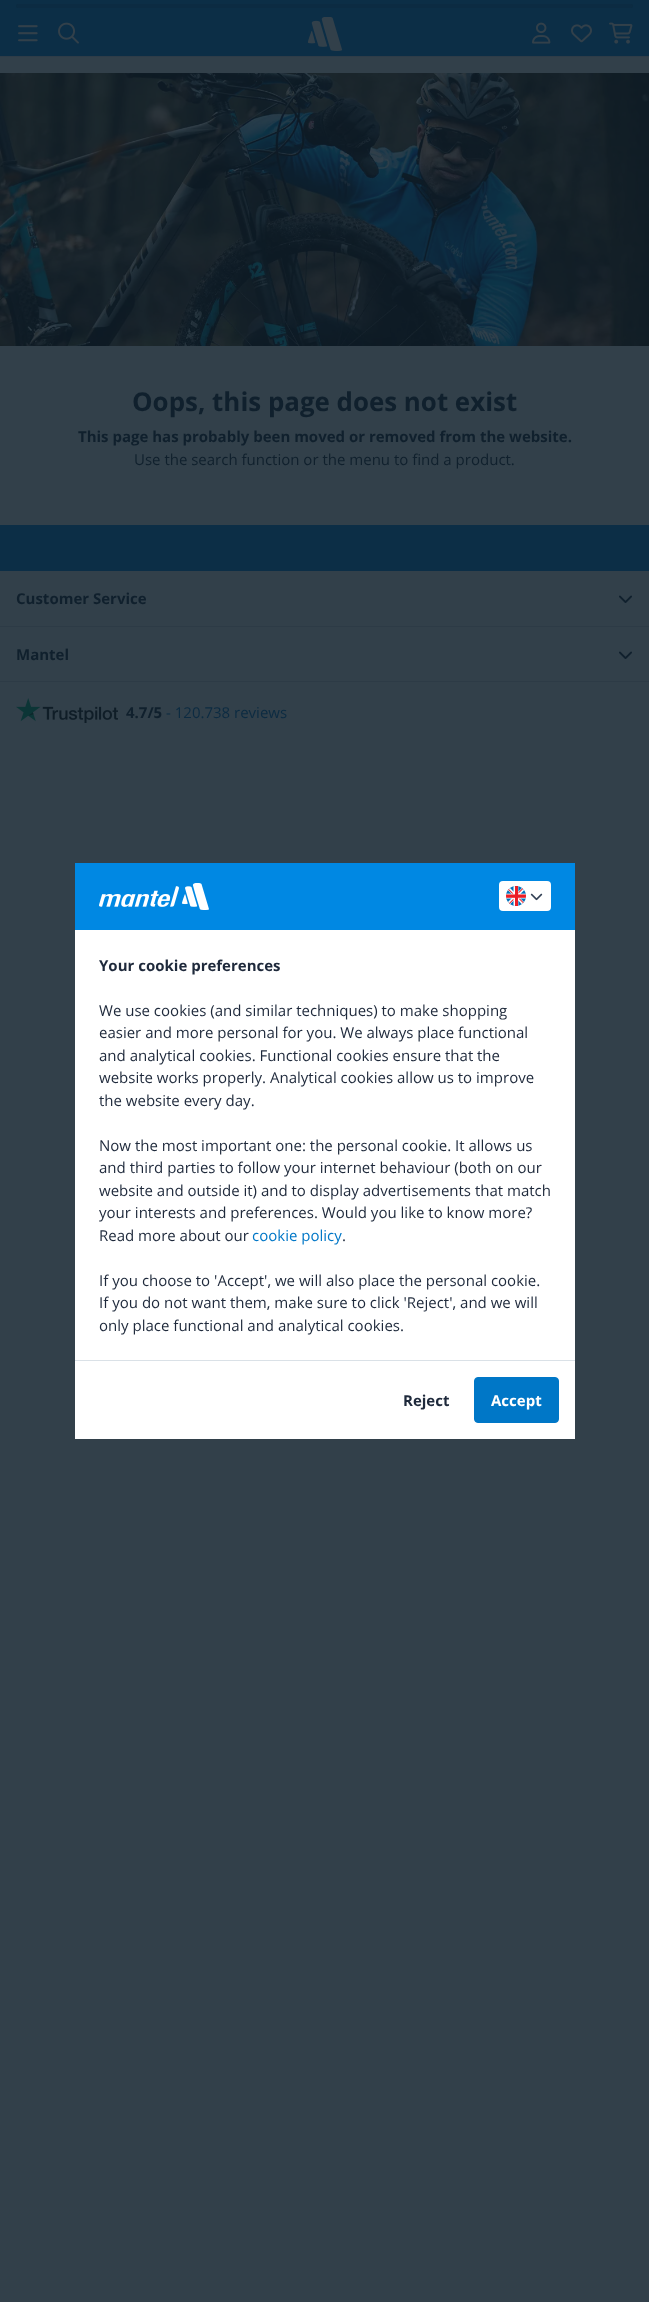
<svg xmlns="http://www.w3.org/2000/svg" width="649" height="2302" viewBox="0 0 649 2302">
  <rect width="100%" height="100%" fill="rgb(50,64,74)"/>
  <rect x="0" y="0" width="649" height="56" fill="rgb(12,46,70)"/>
  <rect x="16" y="4" width="617" height="4" rx="2" fill="rgb(12,43,66)"/>
  <rect x="0" y="56" width="649" height="1" fill="rgb(46,60,72)"/>
  <image x="18" y="25" width="20" height="17" href="pic1.png"/>
  <image x="58" y="22" width="21" height="22" href="pic2.png"/>
  <image x="308" y="17" width="35" height="34" href="pic3.png"/>
  <image x="532" y="22" width="19" height="22" href="pic4.png"/>
  <image x="571" y="24" width="21" height="19" href="pic5.png"/>
  <image x="609" y="22" width="24" height="22" href="pic6.png"/>
  <image x="0" y="73" width="649" height="273" href="pic7.png"/>
  <text x="132" y="411" font-family="Open Sans" font-size="25.9" font-weight="bold" fill="rgb(16,32,45)">Oops, this page does not exist</text>
  <text x="78" y="442" font-family="Open Sans" font-size="15" font-weight="bold" fill="rgb(16,32,45)">This page has probably been moved or removed from the website.</text>
  <text x="134" y="465" font-family="Open Sans" font-size="15" fill="rgb(16,32,45)">Use the search function or the menu to find a product.</text>
  <rect x="0" y="525" width="649" height="46" fill="rgb(12,46,70)"/>
  <rect x="0" y="626" width="649" height="1" fill="rgb(45,59,70)"/>
  <text x="16" y="604" font-family="Open Sans" font-size="15" font-weight="bold" fill="rgb(16,32,45)">Customer Service</text>
  <image x="619" y="595" width="13" height="8" href="pic8.png"/>
  <rect x="0" y="681" width="649" height="1" fill="rgb(45,59,70)"/>
  <text x="16" y="660" font-family="Open Sans" font-size="15" font-weight="bold" fill="rgb(16,32,45)">Mantel</text>
  <image x="619" y="651" width="13" height="8" href="pic8.png"/>
  <image x="16" y="698" width="102" height="25" href="pic9.png"/>
  <text x="126" y="718" font-family="Open Sans" font-size="15" font-weight="bold" fill="rgb(16,32,45)">4.7/5</text>
  <text x="166" y="718" font-family="Open Sans" font-size="15" fill="rgb(12,43,66)">- 120.738 reviews</text>
  <rect x="75" y="930" width="500" height="509" fill="rgb(255,255,255)"/>
  <rect x="75" y="863" width="500" height="67" fill="rgb(0,136,227)"/>
  <image x="99" y="883" width="110" height="27" href="pic10.png"/>
  <rect x="499" y="881" width="52" height="30" rx="4" fill="rgb(255,255,255)"/>
  <image x="506" y="886" width="20" height="20" href="pic11.png"/>
  <image x="530" y="893" width="13" height="8" href="pic12.png"/>
  <text x="99" y="971" font-family="Open Sans" font-size="15" font-weight="bold" fill="rgb(30,41,59)">Your cookie preferences</text>
  <g font-family="Open Sans" font-size="15" fill="rgb(30,41,59)">
    <text>
      <tspan x="99" y="1016">We use cookies (and similar techniques) to make shopping</tspan>
      <tspan x="99" y="1038">easier and more personal for you. We always place functional</tspan>
      <tspan x="99" y="1061">and analytical cookies. Functional cookies ensure that the</tspan>
      <tspan x="99" y="1083">website works properly. Analytical cookies allow us to improve</tspan>
      <tspan x="99" y="1106">the website every day.</tspan>
    </text>
    <text>
      <tspan x="99" y="1151">Now the most important one: the personal cookie. It allows us</tspan>
      <tspan x="99" y="1173">and third parties to follow your internet behaviour (both on our</tspan>
      <tspan x="99" y="1196">website and outside it) and to display advertisements that match</tspan>
      <tspan x="99" y="1218">your interests and preferences. Would you like to know more?</tspan>
      <tspan x="99" y="1241">Read more about our</tspan>
    </text>
  </g>
  <text x="252" y="1241" font-family="Open Sans" font-size="15" fill="rgb(0,119,199)">cookie policy</text>
  <g font-family="Open Sans" font-size="15" fill="rgb(30,41,59)">
    <text x="342" y="1241">.</text>
    <text>
      <tspan x="99" y="1286">If you choose to 'Accept', we will also place the personal cookie.</tspan>
      <tspan x="99" y="1308">If you do not want them, make sure to click 'Reject', and we will</tspan>
      <tspan x="99" y="1331">only place functional and analytical cookies.</tspan>
    </text>
  </g>
  <rect x="75" y="1360" width="500" height="1" fill="rgb(218,225,231)"/>
  <text x="403" y="1406" font-family="Open Sans" font-size="15" font-weight="bold" fill="rgb(30,41,59)">Reject</text>
  <rect x="474.5" y="1377.5" width="84" height="45" rx="3.5" fill="rgb(0,119,199)" stroke="rgb(0,119,199)"/>
  <text x="491" y="1406" font-family="Open Sans" font-size="15" font-weight="bold" fill="rgb(255,255,255)">Accept</text>
</svg>
